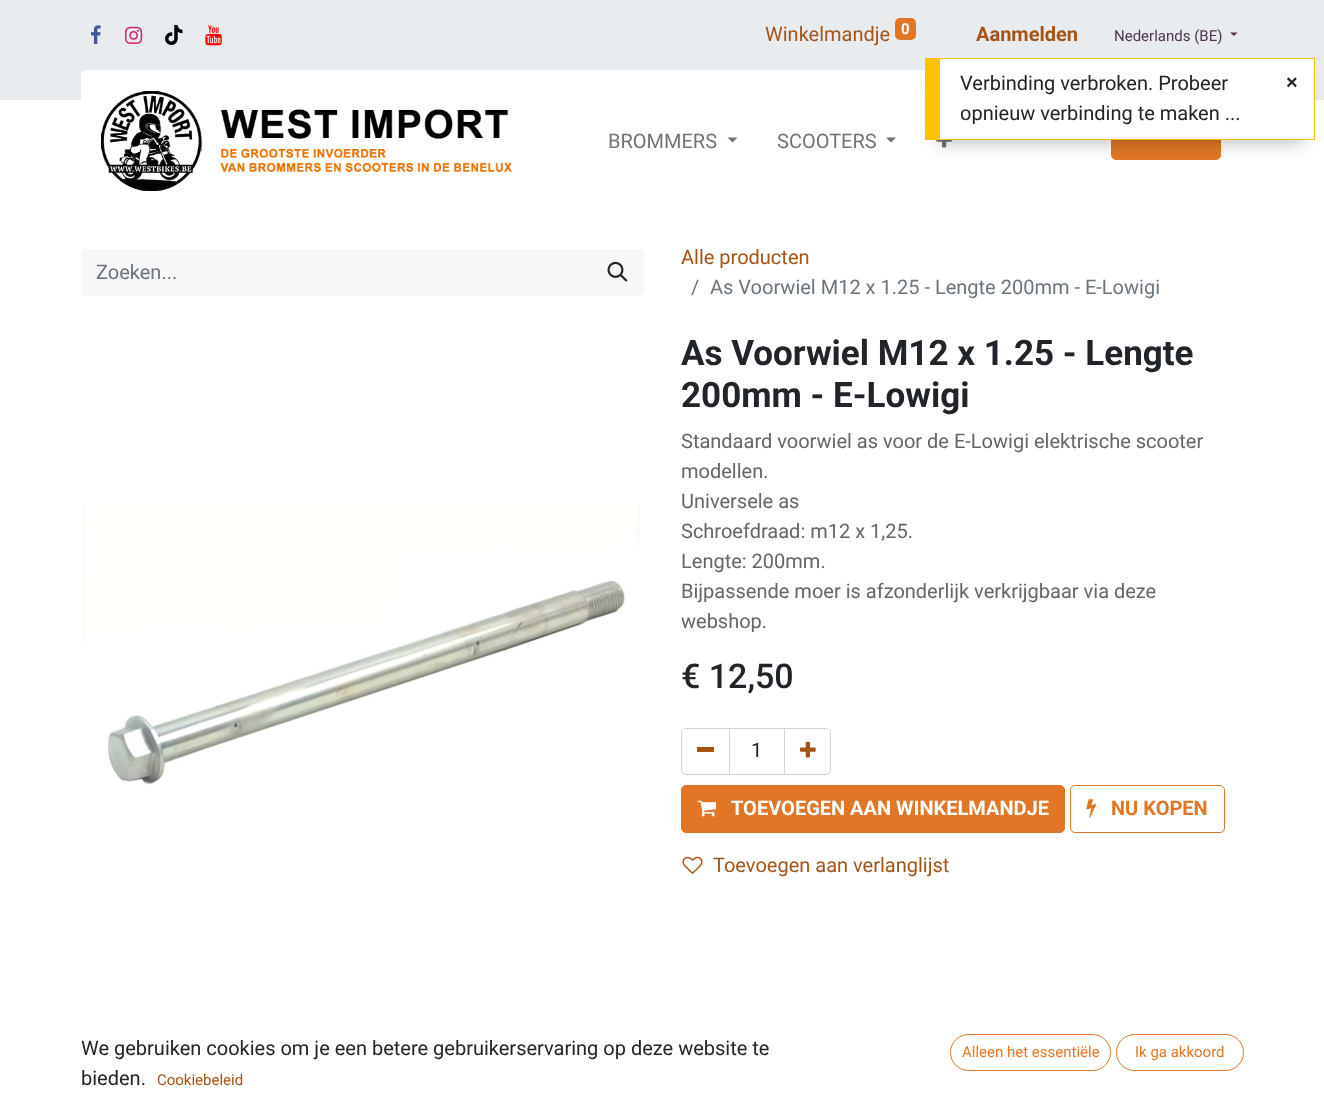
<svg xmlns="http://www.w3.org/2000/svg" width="1324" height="1113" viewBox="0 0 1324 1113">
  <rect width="100%" height="100%" fill="rgb(255,255,255)"/>
  <rect x="0" y="0" width="1324" height="100" fill="rgb(233,236,239)"/>
  <image x="91" y="25" width="10" height="19" href="pic1.png"/>
  <image x="125" y="26" width="18" height="18" href="pic2.png"/>
  <image x="165" y="25" width="18" height="20" href="pic3.png"/>
  <image x="205" y="25" width="17" height="21" href="pic4.png"/>
  <text x="765" y="41" font-family="Roboto" font-size="20" fill="rgb(164,84,23)">Winkelmandje</text>
  <rect x="895" y="18" width="21" height="22" rx="5" fill="rgb(225,119,38)"/>
  <text x="901" y="34" font-family="Roboto" font-size="15" font-weight="bold" fill="rgb(255,255,255)">0</text>
  <text x="976" y="41" font-family="Roboto" font-size="20" font-weight="bold" fill="rgb(164,84,23)">Aanmelden</text>
  <text x="1114" y="41" font-family="Roboto" font-size="15" fill="rgb(81,52,77)">Nederlands (BE)</text>
  <path d="M1230 32.5H1237.5L1234 36Z" fill="rgb(81,52,77)"/>
  <rect x="81" y="70" width="1163" height="143" rx="5" fill="rgb(255,255,255)"/>
  <image x="101" y="91" width="412" height="100" href="pic5.png"/>
  <text x="608" y="148" font-family="Roboto" font-size="20" fill="rgb(115,115,115)">BROMMERS</text>
  <path d="M727.5 137.5H737.5L732.5 142.5Z" fill="rgb(115,115,115)"/>
  <text x="777" y="148" font-family="Roboto" font-size="20" fill="rgb(115,115,115)">SCOOTERS</text>
  <path d="M886 137.5H896L891 142.5Z" fill="rgb(115,115,115)"/>
  <image x="936" y="140" width="16" height="8" href="pic6.png"/>
  <rect x="1111.5" y="113.5" width="109" height="46" rx="4.5" fill="rgb(225,119,38)" stroke="rgb(225,119,38)"/>
  <path d="M86 249H593V296H86C83 296 81 294 81 291V254C81 251 83 249 86 249Z" fill="rgb(247,247,247)"/>
  <text x="96" y="279" font-family="Roboto" font-size="20" fill="rgb(108,117,125)">Zoeken...</text>
  <path d="M591 249H639C642 249 644 251 644 254V291C644 294 642 296 639 296H591Z" fill="rgb(247,247,247)"/>
  <image x="607" y="261" width="21" height="21" href="pic7.png"/>
  <text x="681" y="264" font-family="Roboto" font-size="20" fill="rgb(164,84,23)">Alle producten</text>
  <g font-family="Roboto" font-size="20" fill="rgb(108,117,125)">
    <text x="691" y="294">/</text>
    <text x="710" y="294">As Voorwiel M12 x 1.25 - Lengte 200mm - E-Lowigi</text>
  </g>
  <image x="82" y="505" width="558" height="280" href="pic8.png"/>
  <g font-family="Roboto" font-size="35" font-weight="bold" fill="rgb(33,37,41)">
    <text>
      <tspan x="681" y="365">As Voorwiel M12 x 1.25 - Lengte</tspan>
      <tspan x="681" y="407">200mm - E-Lowigi</tspan>
    </text>
  </g>
  <g font-family="Roboto" font-size="20" fill="rgb(100,102,105)">
    <text>
      <tspan x="681" y="448">Standaard voorwiel as voor de E-Lowigi elektrische scooter</tspan>
      <tspan x="681" y="478">modellen.</tspan>
      <tspan x="681" y="508">Universele as</tspan>
      <tspan x="681" y="538">Schroefdraad: m12 x 1,25.</tspan>
      <tspan x="681" y="568">Lengte: 200mm.</tspan>
      <tspan x="681" y="598">Bijpassende moer is afzonderlijk verkrijgbaar via deze</tspan>
      <tspan x="681" y="628">webshop.</tspan>
    </text>
  </g>
  <text x="681" y="688" font-family="Roboto" font-size="34" font-weight="500" fill="rgb(33,37,41)">€ 12,50</text>
  <rect x="729.5" y="728.5" width="55" height="46" fill="none" stroke="rgb(206,212,218)"/>
  <path d="M686 728.5H729.5V774.5H686C683.5 774.5 681.5 772.5 681.5 770V733C681.5 730.5 683.5 728.5 686 728.5Z" fill="none" stroke="rgb(206,212,218)"/>
  <rect x="697" y="747" width="17" height="5" fill="rgb(164,84,23)"/>
  <text x="751" y="757" font-family="Roboto" font-size="20" fill="rgb(33,37,41)">1</text>
  <path d="M784.5 728.5H826C828.5 728.5 830.5 730.5 830.5 733V770C830.5 772.5 828.5 774.5 826 774.5H784.5Z" fill="none" stroke="rgb(206,212,218)"/>
  <image x="800" y="741" width="16" height="17" href="pic9.png"/>
  <rect x="681.5" y="785.5" width="383" height="47" rx="4.5" fill="rgb(225,119,38)" stroke="rgb(225,119,38)"/>
  <image x="697" y="800" width="20" height="17" href="pic10.png"/>
  <text x="731" y="815" font-family="Roboto" font-size="20" font-weight="bold" fill="rgb(255,255,255)">TOEVOEGEN AAN WINKELMANDJE</text>
  <rect x="1070.5" y="785.5" width="154" height="47" rx="4.5" fill="none" stroke="rgb(225,119,38)"/>
  <image x="1086" y="799" width="11" height="19" href="pic11.png"/>
  <text x="1111" y="815" font-family="Roboto" font-size="20" font-weight="bold" fill="rgb(225,119,38)">NU KOPEN</text>
  <image x="682" y="856" width="21" height="18" href="pic12.png"/>
  <text x="713" y="872" font-family="Roboto" font-size="20" fill="rgb(164,84,23)">Toevoegen aan verlanglijst</text>
  <g font-family="Roboto" font-size="20" fill="rgb(33,37,41)">
    <text>
      <tspan x="81" y="1055">We gebruiken cookies om je een betere gebruikerservaring op deze website te</tspan>
      <tspan x="81" y="1085">bieden.</tspan>
    </text>
  </g>
  <text x="157" y="1085" font-family="Roboto" font-size="15" fill="rgb(164,84,23)">Cookiebeleid</text>
  <rect x="950.5" y="1034.5" width="160" height="36" rx="18" fill="none" stroke="rgb(225,119,38)"/>
  <text x="962" y="1057" font-family="Roboto" font-size="15" fill="rgb(225,119,38)">Alleen het essentiële</text>
  <rect x="1116.5" y="1034.5" width="127" height="36" rx="18" fill="none" stroke="rgb(225,119,38)"/>
  <text x="1135" y="1057" font-family="Roboto" font-size="15" fill="rgb(225,119,38)">Ik ga akkoord</text>
  <rect x="938" y="85" width="365" height="58" fill="rgba(0,0,0,0.25)" filter="blur(9px)"/>
  <rect x="940" y="59" width="374" height="80" fill="rgb(255,255,255)"/>
  <rect x="940" y="58" width="375" height="1" fill="rgb(255,193,7)"/>
  <rect x="1314" y="58" width="1" height="82" fill="rgb(255,193,7)"/>
  <rect x="940" y="139" width="375" height="1" fill="rgb(255,193,7)"/>
  <rect x="925" y="58" width="15" height="82" fill="rgb(255,193,7)"/>
  <g font-family="Roboto" font-size="20" fill="rgb(33,37,41)">
    <text>
      <tspan x="960" y="90">Verbinding verbroken. Probeer</tspan>
      <tspan x="960" y="120">opnieuw verbinding te maken ...</tspan>
    </text>
  </g>
  <text x="1286" y="89" font-family="Liberation Sans" font-size="20" font-weight="bold" fill="rgb(33,37,41)">×</text>
</svg>
